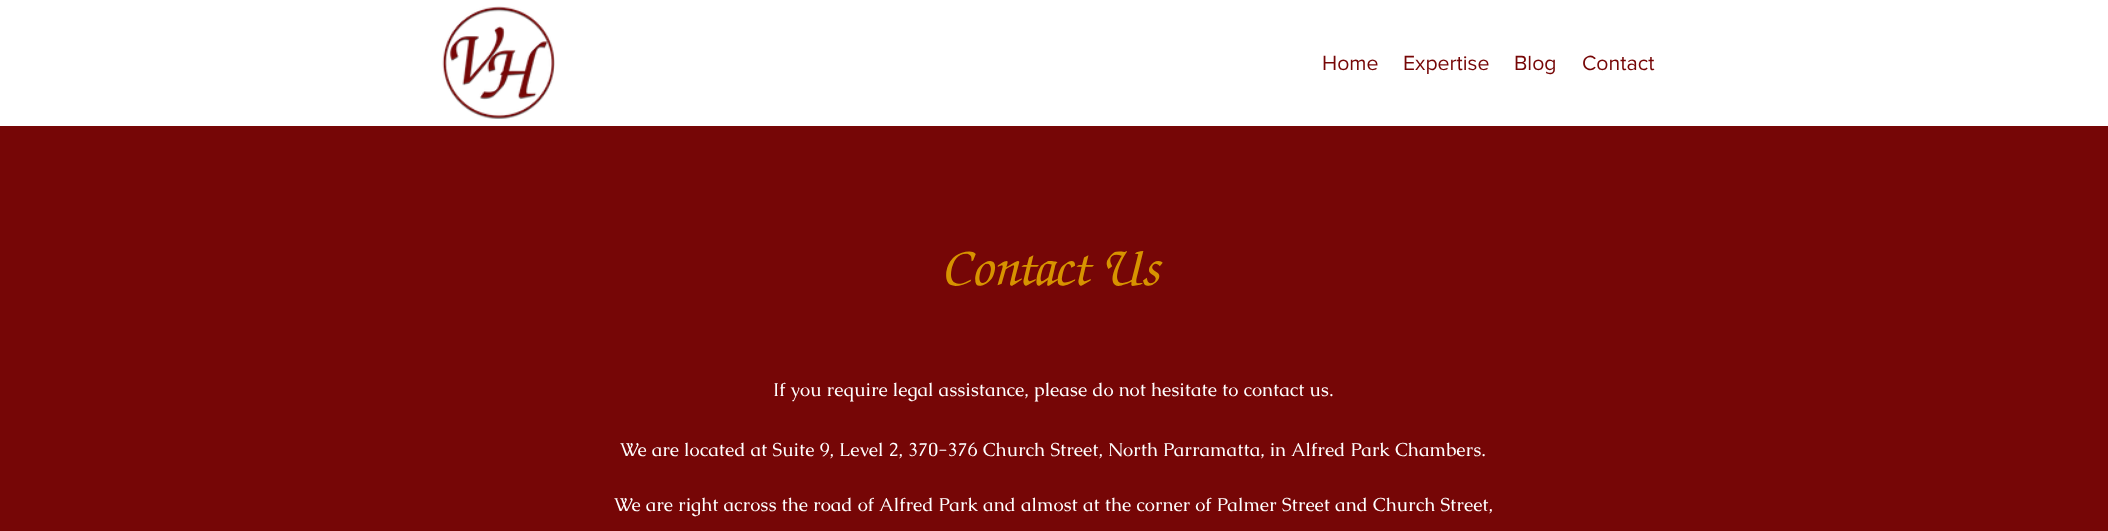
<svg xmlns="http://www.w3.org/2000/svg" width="2108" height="531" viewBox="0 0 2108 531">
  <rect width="100%" height="100%" fill="rgb(255,255,255)"/>
  <image x="442" y="6" width="113" height="113" href="pic1.png"/>
  <g font-family="'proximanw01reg'" font-size="21.25" fill="rgb(118,6,6)">
    <text x="1322" y="70">Home</text>
    <text x="1403" y="70">Expertise</text>
    <text x="1514" y="70">Blog</text>
    <text x="1582" y="70">Contact</text>
  </g>
  <rect x="0" y="126" width="2108" height="405" fill="rgb(118,6,6)"/>
  <text x="945" y="285" font-family="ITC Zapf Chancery" font-size="55" font-weight="500" font-style="italic" fill="rgb(215,147,0)">Contact Us</text>
  <g font-family="Caudex" font-size="18.75" fill="rgb(255,255,255)">
    <text x="773" y="396">If you require legal assistance, please do not hesitate to contact us.</text>
    <text x="620" y="456">We are located at Suite 9, Level 2, 370-376 Church Street, North Parramatta, in Alfred Park Chambers.</text>
    <text x="614" y="511">We are right across the road of Alfred Park and almost at the corner of Palmer Street and Church Street,</text>
  </g>
</svg>
